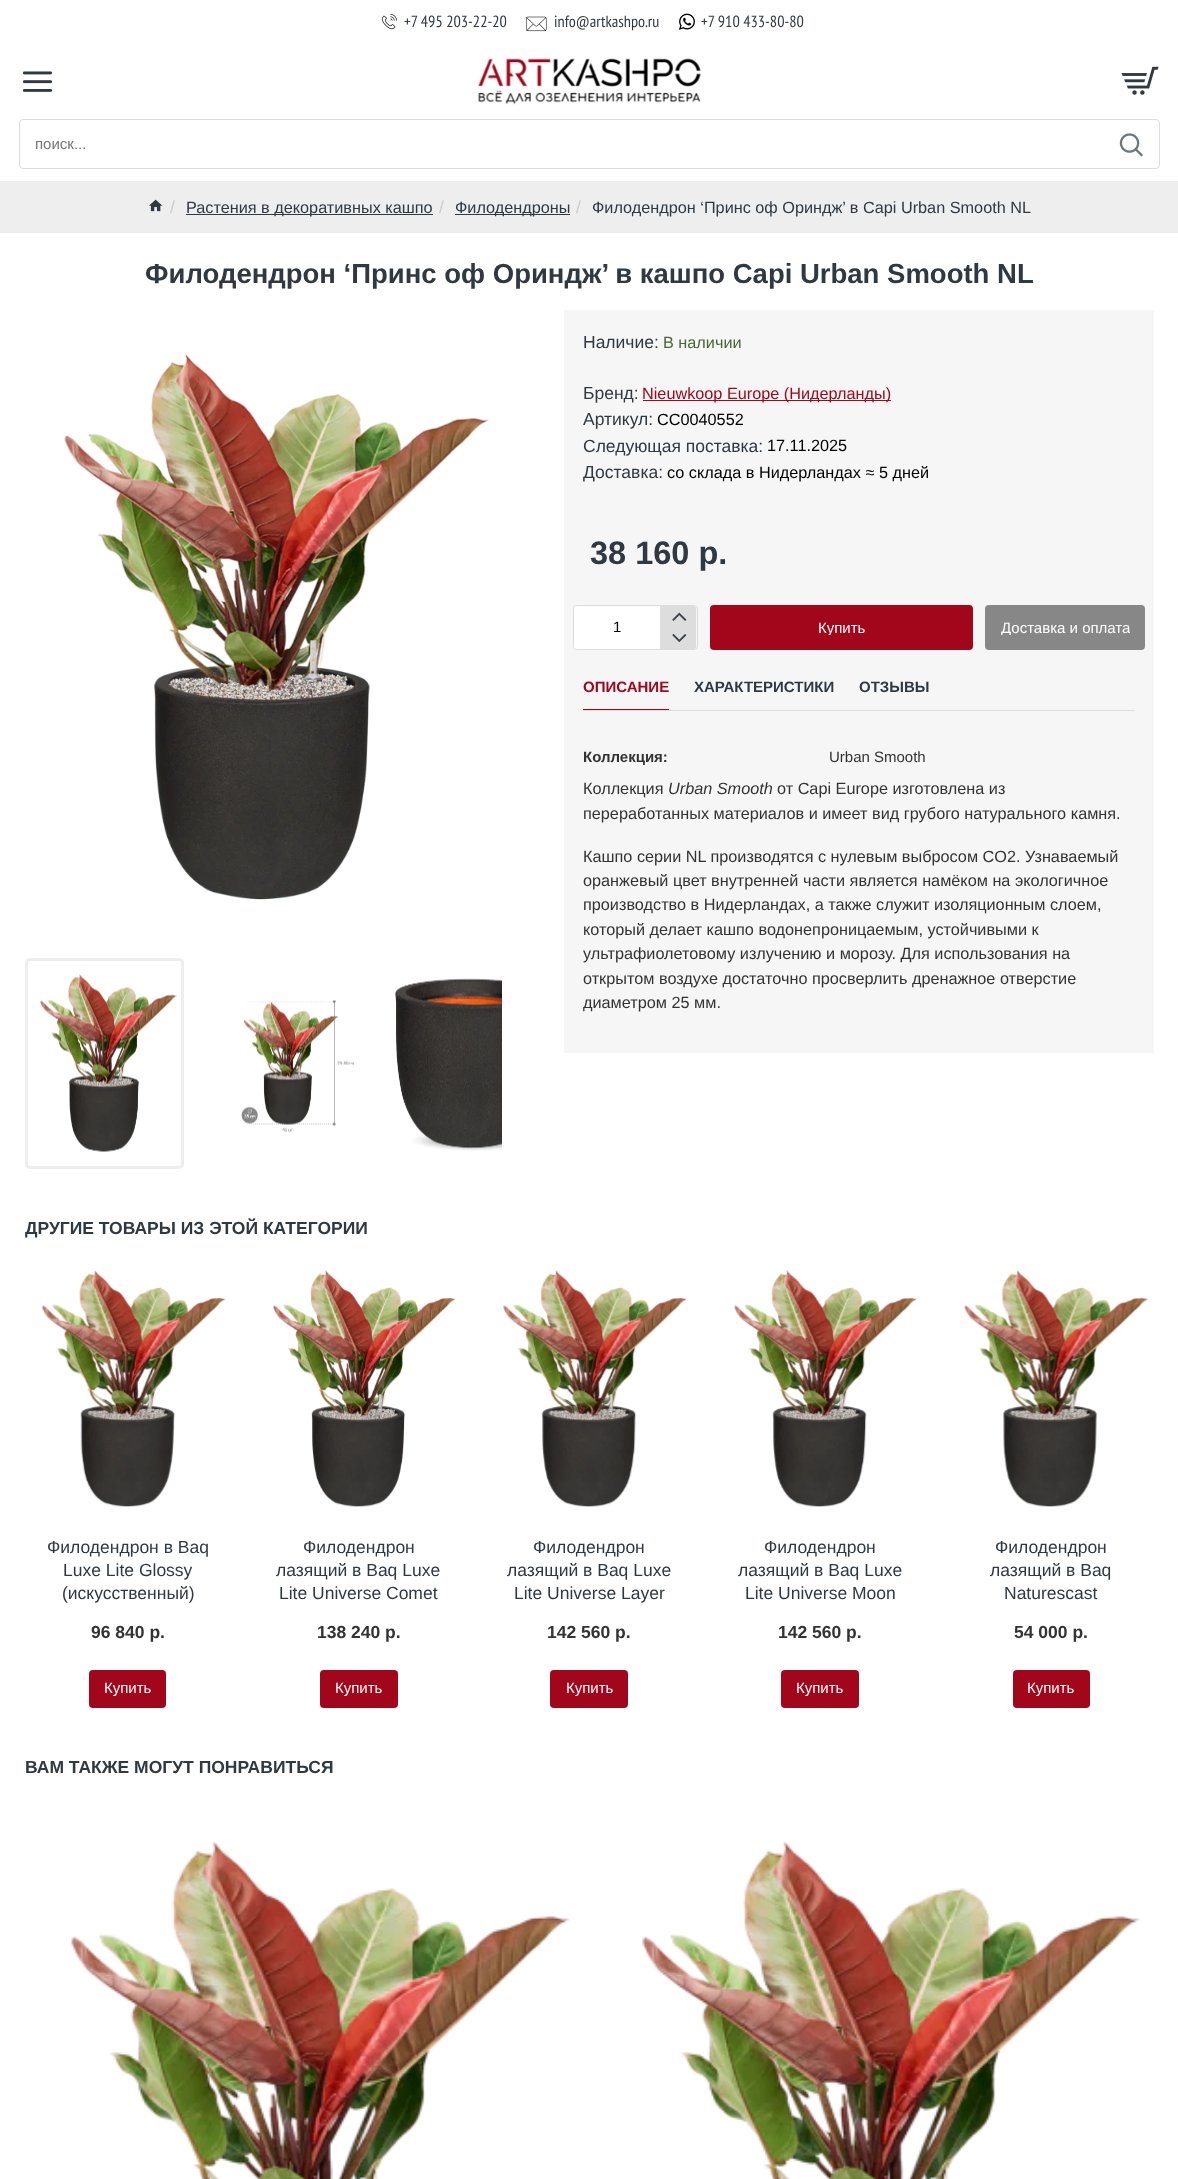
<svg xmlns="http://www.w3.org/2000/svg" width="1178" height="2179" viewBox="0 0 1178 2179">
  <defs>
    <clipPath id="clip1"><rect x="818" y="620" width="47" height="15"/></clipPath>
    <clipPath id="clip2"><rect x="1000" y="620" width="130" height="15"/></clipPath>
  </defs>
  <rect width="100%" height="100%" fill="rgb(255,255,255)"/>
  <image x="381" y="14" width="16" height="16" href="pic1.png"/>
  <text x="404" y="27" font-family="PT Sans Narrow" font-size="16.25" fill="rgb(48,56,65)">+7 495 203-22-20</text>
  <image x="526" y="16" width="21" height="16" href="pic2.png"/>
  <text x="554" y="27" font-family="PT Sans Narrow" font-size="16.25" fill="rgb(48,56,65)">info@artkashpo.ru</text>
  <image x="678" y="13" width="17" height="17" href="pic3.png"/>
  <text x="701" y="27" font-family="PT Sans Narrow" font-size="16.25" fill="rgb(48,56,65)">+7 910 433-80-80</text>
  <image x="22" y="71" width="31" height="21" href="pic4.png"/>
  <image x="478" y="58" width="223" height="47" href="pic5.png"/>
  <image x="1121" y="66" width="38" height="29" href="pic6.png"/>
  <rect x="19.5" y="119.5" width="1140" height="49" rx="3.5" fill="none" stroke="rgb(221,221,221)"/>
  <text x="35" y="149" font-family="Liberation Sans" font-size="15" fill="rgb(117,117,117)">поиск...</text>
  <image x="1119" y="133" width="24" height="24" href="pic7.png"/>
  <rect x="0" y="181" width="1178" height="52" fill="rgb(238,238,238)"/>
  <image x="149" y="199" width="14" height="13" href="pic8.png"/>
  <text x="170" y="213" font-family="Liberation Sans" font-size="17.5" fill="rgb(204,204,204)">/</text>
  <rect x="186" y="214" width="247" height="1" fill="rgb(48,56,65)"/>
  <text x="186" y="213" font-family="Liberation Sans" font-size="16.25" fill="rgb(48,56,65)">Растения в декоративных кашпо</text>
  <text x="439" y="213" font-family="Liberation Sans" font-size="17.5" fill="rgb(204,204,204)">/</text>
  <rect x="455" y="214" width="115" height="1" fill="rgb(48,56,65)"/>
  <text x="455" y="213" font-family="Liberation Sans" font-size="16.25" fill="rgb(48,56,65)">Филодендроны</text>
  <text x="576" y="213" font-family="Liberation Sans" font-size="17.5" fill="rgb(204,204,204)">/</text>
  <text x="592" y="213" font-family="Liberation Sans" font-size="16.25" fill="rgb(48,56,65)">Филодендрон ‘Принс оф Ориндж’ в Capi Urban Smooth NL</text>
  <text x="145" y="283" font-family="Liberation Sans" font-size="27.5" font-weight="bold" fill="rgb(48,56,65)">Филодендрон ‘Принс оф Ориндж’ в кашпо Capi Urban Smooth NL</text>
  <image x="64" y="354" width="425" height="546" href="pic9.png"/>
  <rect x="26.5" y="959.5" width="156" height="208" rx="3.5" fill="none" stroke="rgb(238,238,238)" stroke-width="3"/>
  <image x="40" y="974" width="137" height="178" href="pic10.png"/>
  <image x="241" y="1000" width="113" height="132" href="pic11.png"/>
  <image x="395" y="978" width="107" height="173" href="pic12.png"/>
  <rect x="564" y="310" width="590" height="286" fill="rgb(246,246,246)"/>
  <text x="583" y="348" font-family="Liberation Sans" font-size="17.5" fill="rgb(48,56,65)">Наличие:</text>
  <text x="663" y="348" font-family="Liberation Sans" font-size="16.25" fill="rgb(66,106,50)">В наличии</text>
  <text x="583" y="399" font-family="Liberation Sans" font-size="17.5" fill="rgb(48,56,65)">Бренд:</text>
  <rect x="643" y="400" width="248" height="1" fill="rgb(161,6,27)"/>
  <text x="642" y="399" font-family="Liberation Sans" font-size="16.25" fill="rgb(161,6,27)">Nieuwkoop Europe (Нидерланды)</text>
  <text x="583" y="425" font-family="Liberation Sans" font-size="17.5" fill="rgb(48,56,65)">Артикул:</text>
  <text x="657" y="425" font-family="Liberation Sans" font-size="16.25" fill="rgb(0,0,0)">CC0040552</text>
  <text x="583" y="452" font-family="Liberation Sans" font-size="17.5" fill="rgb(48,56,65)">Следующая поставка:</text>
  <text x="767" y="451" font-family="Liberation Sans" font-size="16.25" fill="rgb(0,0,0)">17.11.2025</text>
  <text x="583" y="478" font-family="Liberation Sans" font-size="17.5" fill="rgb(48,56,65)">Доставка:</text>
  <text x="667" y="478" font-family="Liberation Sans" font-size="16.25" fill="rgb(0,0,0)">со склада в Нидерландах ≈ 5 дней</text>
  <text x="590" y="564" font-family="Liberation Sans" font-size="32.5" font-weight="bold" fill="rgb(48,56,65)">38 160 р.</text>
  <rect x="564" y="596" width="590" height="457" fill="rgb(246,246,246)"/>
  <rect x="573.5" y="605.5" width="124" height="44" rx="3.5" fill="none" stroke="rgb(221,221,221)"/>
  <path d="M576.5 606H660V649H576.5C575 649 574 648 574 646.5V608.5C574 607 575 606 576.5 606Z" fill="rgb(255,255,255)"/>
  <text x="613" y="632" font-family="Liberation Sans" font-size="15" fill="rgb(0,0,0)">1</text>
  <path d="M661 606H693.5C695 606 696 607 696 608.5V628H661Z" fill="rgb(221,221,221)"/>
  <rect x="660" y="606" width="1" height="22" fill="rgb(221,221,221)"/>
  <image x="672" y="612" width="15" height="9" href="pic13.png"/>
  <path d="M661 629H696V646.5C696 648 695 649 693.5 649H661Z" fill="rgb(221,221,221)"/>
  <rect x="660" y="628" width="36" height="1" fill="rgb(221,221,221)"/>
  <rect x="660" y="628" width="1" height="21" fill="rgb(221,221,221)"/>
  <image x="672" y="634" width="15" height="9" href="pic14.png"/>
  <rect x="710" y="605" width="263" height="45" rx="4" fill="rgb(161,6,27)"/>
  <g clip-path="url(#clip1)">
    <text x="818" y="633" font-family="Liberation Sans" font-size="15" fill="rgb(255,255,255)">Купить</text>
  </g>
  <rect x="985" y="605" width="160" height="45" rx="4" fill="rgb(135,135,135)"/>
  <g clip-path="url(#clip2)">
    <text x="1001" y="633" font-family="Liberation Sans" font-size="15" fill="rgb(255,255,255)">Доставка и оплата</text>
  </g>
  <rect x="583" y="710" width="552" height="1" fill="rgb(221,221,221)"/>
  <rect x="583" y="709" width="86" height="1" fill="rgb(161,6,27)"/>
  <text x="583" y="692" font-family="Liberation Sans" font-size="15" font-weight="bold" fill="rgb(161,6,27)">ОПИСАНИЕ</text>
  <g font-family="Liberation Sans" font-size="15" font-weight="bold" fill="rgb(48,56,65)">
    <text x="694" y="692">ХАРАКТЕРИСТИКИ</text>
    <text x="859" y="692">ОТЗЫВЫ</text>
  </g>
  <text x="583" y="762" font-family="Liberation Sans" font-size="15" font-weight="bold" fill="rgb(51,51,51)">Коллекция:</text>
  <text x="829" y="762" font-family="Liberation Sans" font-size="15" fill="rgb(51,51,51)">Urban Smooth</text>
  <text x="583" y="794" font-family="Liberation Sans" font-size="16.25" fill="rgb(51,51,51)">Коллекция</text>
  <text x="668" y="794" font-family="Liberation Sans" font-size="16.25" font-style="italic" fill="rgb(51,51,51)">Urban Smooth</text>
  <g font-family="Liberation Sans" font-size="16.25" fill="rgb(51,51,51)">
    <text x="777" y="794">от Capi Europe изготовлена из</text>
    <text x="583" y="819">переработанных материалов и имеет вид грубого натурального камня.</text>
    <text>
      <tspan x="583" y="862">Кашпо серии NL производятся с нулевым выбросом CO2. Узнаваемый</tspan>
      <tspan x="583" y="886">оранжевый цвет внутренней части является намёком на экологичное</tspan>
      <tspan x="583" y="910">производство в Нидерландах, а также служит изоляционным слоем,</tspan>
      <tspan x="583" y="935">который делает кашпо водонепроницаемым, устойчивыми к</tspan>
      <tspan x="583" y="959">ультрафиолетовому излучению и морозу. Для использования на</tspan>
      <tspan x="583" y="984">открытом воздухе достаточно просверлить дренажное отверстие</tspan>
      <tspan x="583" y="1008">диаметром 25 мм.</tspan>
    </text>
  </g>
  <text x="25" y="1234" font-family="Liberation Sans" font-size="17.5" font-weight="bold" fill="rgb(48,56,65)">ДРУГИЕ ТОВАРЫ ИЗ ЭТОЙ КАТЕГОРИИ</text>
  <image x="41" y="1270" width="185" height="237" href="pic15.png"/>
  <g font-family="Liberation Sans" font-size="17.5" fill="rgb(48,56,65)">
    <text x="47" y="1553">Филодендрон в Baq</text>
    <text x="63" y="1576">Luxe Lite Glossy</text>
    <text x="62" y="1599">(искусственный)</text>
  </g>
  <text x="91" y="1638" font-family="Liberation Sans" font-size="17.5" font-weight="bold" fill="rgb(51,51,51)">96 840 р.</text>
  <rect x="89" y="1670" width="77" height="38" rx="4" fill="rgb(161,6,27)"/>
  <text x="104" y="1693" font-family="Liberation Sans" font-size="15" fill="rgb(255,255,255)">Купить</text>
  <image x="273" y="1270" width="183" height="237" href="pic16.png"/>
  <g font-family="Liberation Sans" font-size="17.5" fill="rgb(48,56,65)">
    <text x="303" y="1553">Филодендрон</text>
    <text x="276" y="1576">лазящий в Baq Luxe</text>
    <text x="279" y="1599">Lite Universe Comet</text>
  </g>
  <text x="317" y="1638" font-family="Liberation Sans" font-size="17.5" font-weight="bold" fill="rgb(51,51,51)">138 240 р.</text>
  <rect x="320" y="1670" width="78" height="38" rx="4" fill="rgb(161,6,27)"/>
  <text x="335" y="1693" font-family="Liberation Sans" font-size="15" fill="rgb(255,255,255)">Купить</text>
  <image x="503" y="1270" width="185" height="237" href="pic17.png"/>
  <g font-family="Liberation Sans" font-size="17.5" fill="rgb(48,56,65)">
    <text x="533" y="1553">Филодендрон</text>
    <text x="507" y="1576">лазящий в Baq Luxe</text>
    <text x="514" y="1599">Lite Universe Layer</text>
  </g>
  <text x="547" y="1638" font-family="Liberation Sans" font-size="17.5" font-weight="bold" fill="rgb(51,51,51)">142 560 р.</text>
  <rect x="550" y="1670" width="78" height="38" rx="4" fill="rgb(161,6,27)"/>
  <text x="566" y="1693" font-family="Liberation Sans" font-size="15" fill="rgb(255,255,255)">Купить</text>
  <image x="734" y="1270" width="183" height="237" href="pic18.png"/>
  <g font-family="Liberation Sans" font-size="17.5" fill="rgb(48,56,65)">
    <text x="764" y="1553">Филодендрон</text>
    <text x="738" y="1576">лазящий в Baq Luxe</text>
    <text x="745" y="1599">Lite Universe Moon</text>
  </g>
  <text x="778" y="1638" font-family="Liberation Sans" font-size="17.5" font-weight="bold" fill="rgb(51,51,51)">142 560 р.</text>
  <rect x="781" y="1670" width="78" height="38" rx="4" fill="rgb(161,6,27)"/>
  <text x="796" y="1693" font-family="Liberation Sans" font-size="15" fill="rgb(255,255,255)">Купить</text>
  <image x="964" y="1270" width="185" height="237" href="pic19.png"/>
  <g font-family="Liberation Sans" font-size="17.5" fill="rgb(48,56,65)">
    <text x="995" y="1553">Филодендрон</text>
    <text x="990" y="1576">лазящий в Baq</text>
    <text x="1004" y="1599">Naturescast</text>
  </g>
  <text x="1014" y="1638" font-family="Liberation Sans" font-size="17.5" font-weight="bold" fill="rgb(51,51,51)">54 000 р.</text>
  <rect x="1013" y="1670" width="77" height="38" rx="4" fill="rgb(161,6,27)"/>
  <text x="1027" y="1693" font-family="Liberation Sans" font-size="15" fill="rgb(255,255,255)">Купить</text>
  <text x="25" y="1773" font-family="Liberation Sans" font-size="17.5" font-weight="bold" fill="rgb(48,56,65)">ВАМ ТАКЖЕ МОГУТ ПОНРАВИТЬСЯ</text>
  <image x="70" y="1841" width="500" height="338" href="pic20.png"/>
  <image x="641" y="1841" width="499" height="338" href="pic21.png"/>
</svg>
